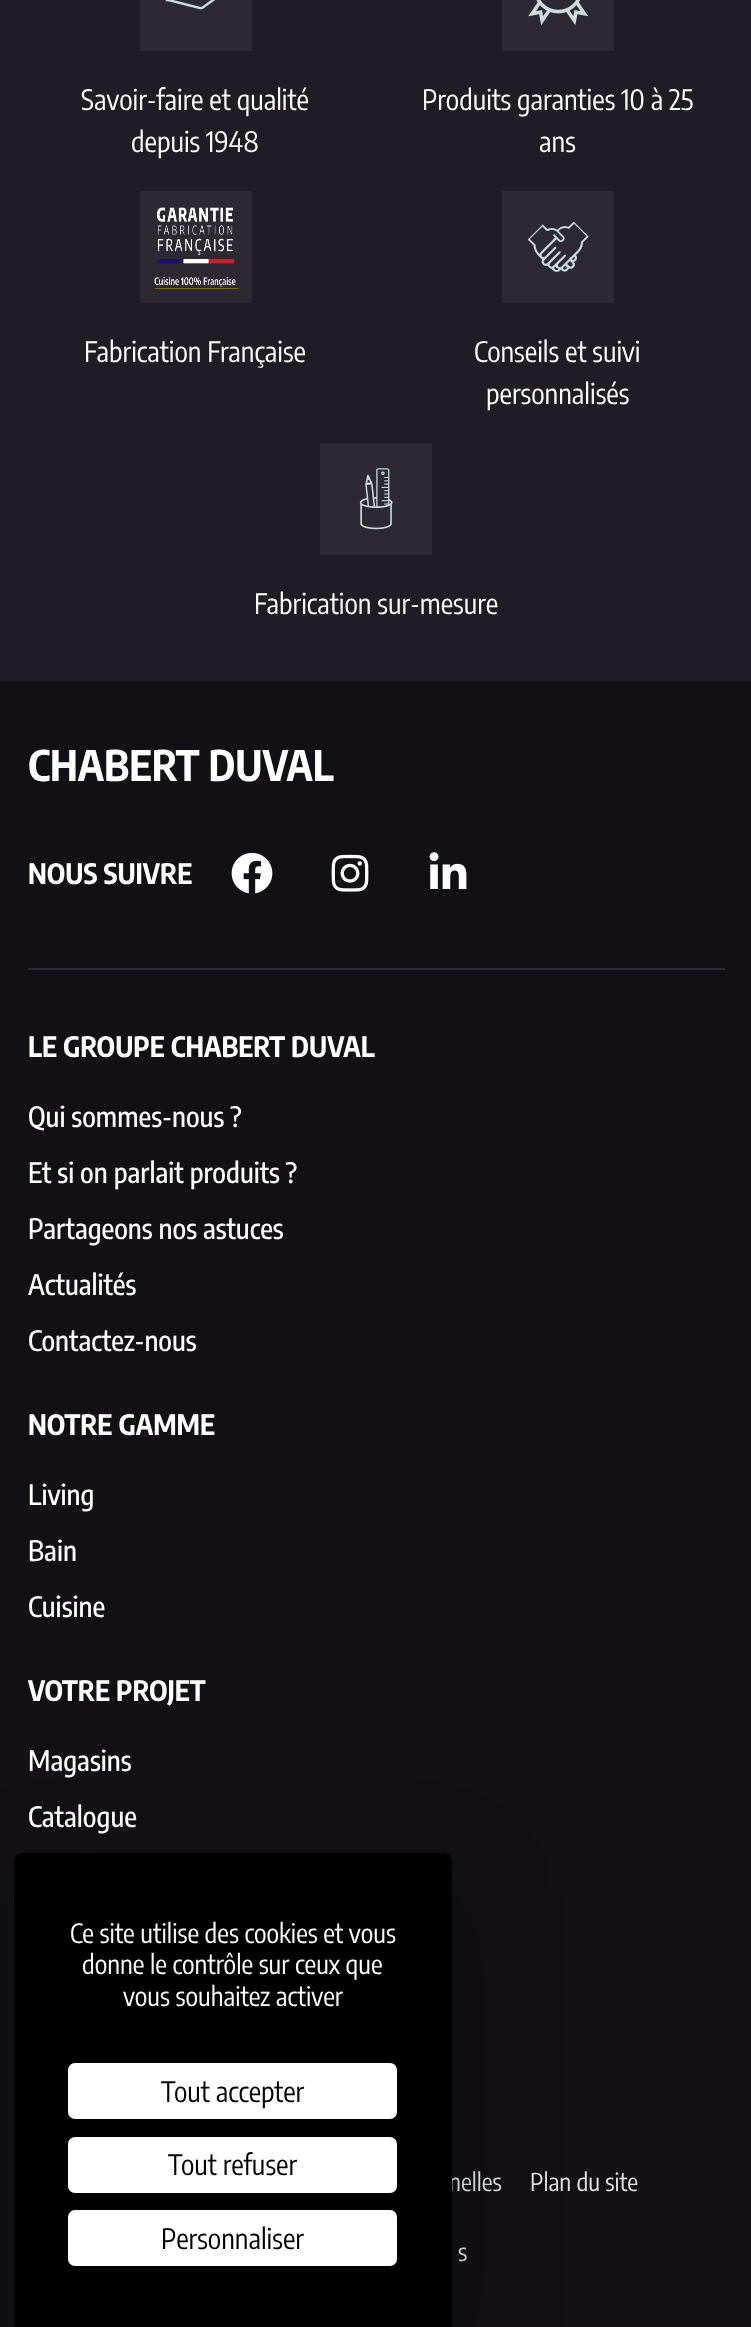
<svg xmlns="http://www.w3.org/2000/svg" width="751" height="2327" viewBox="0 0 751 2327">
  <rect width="100%" height="100%" fill="rgb(31,29,35)"/>
  <rect x="140" y="0" width="112" height="51" fill="rgb(44,41,50)"/>
  <image x="165" y="0" width="50" height="10" href="pic1.png"/>
  <g font-family="Encode Sans Condensed" font-size="28" fill="rgb(255,255,255)">
    <text x="81" y="110">Savoir-faire et qualité</text>
    <text x="131" y="152">depuis 1948</text>
  </g>
  <rect x="502" y="0" width="112" height="51" fill="rgb(44,41,50)"/>
  <image x="528" y="0" width="61" height="26" href="pic2.png"/>
  <g font-family="Encode Sans Condensed" font-size="28" fill="rgb(255,255,255)">
    <text x="422" y="110">Produits garanties 10 à 25</text>
    <text x="539" y="152">ans</text>
  </g>
  <rect x="140" y="191" width="112" height="112" fill="rgb(44,41,50)"/>
  <image x="154" y="207" width="84" height="82" href="pic3.png"/>
  <text x="84" y="362" font-family="Encode Sans Condensed" font-size="28" fill="rgb(255,255,255)">Fabrication Française</text>
  <rect x="502" y="191" width="112" height="112" fill="rgb(44,41,50)"/>
  <image x="527" y="221" width="62" height="51" href="pic4.png"/>
  <g font-family="Encode Sans Condensed" font-size="28" fill="rgb(255,255,255)">
    <text x="474" y="362">Conseils et suivi</text>
    <text x="486" y="404">personnalisés</text>
  </g>
  <rect x="320" y="443" width="112" height="112" fill="rgb(44,41,50)"/>
  <image x="359" y="468" width="34" height="62" href="pic5.png"/>
  <text x="254" y="614" font-family="Encode Sans Condensed" font-size="28" fill="rgb(255,255,255)">Fabrication sur-mesure</text>
  <rect x="0" y="681" width="751" height="1646" fill="rgb(18,16,20)"/>
  <rect x="28" y="968" width="697" height="2" fill="rgb(44,41,50)"/>
  <text x="28" y="781" font-family="Encode Sans Condensed" font-size="42" font-weight="bold" fill="rgb(255,255,255)">CHABERT DUVAL</text>
  <text x="28" y="884" font-family="Encode Sans Condensed" font-size="28" font-weight="bold" fill="rgb(255,255,255)">NOUS SUIVRE</text>
  <image x="231" y="852" width="42" height="42" href="pic6.png"/>
  <image x="331" y="854" width="38" height="38" href="pic7.png"/>
  <image x="429" y="852" width="38" height="37" href="pic8.png"/>
  <text x="28" y="1057" font-family="Encode Sans Condensed" font-size="28" font-weight="bold" fill="rgb(255,255,255)">LE GROUPE CHABERT DUVAL</text>
  <g font-family="Encode Sans Condensed" font-size="28" font-weight="500" fill="rgb(255,255,255)">
    <text x="28" y="1127">Qui sommes-nous ?</text>
    <text x="28" y="1183">Et si on parlait produits ?</text>
    <text x="28" y="1239">Partageons nos astuces</text>
    <text x="28" y="1295">Actualités</text>
    <text x="28" y="1351">Contactez-nous</text>
  </g>
  <text x="28" y="1435" font-family="Encode Sans Condensed" font-size="28" font-weight="bold" fill="rgb(255,255,255)">NOTRE GAMME</text>
  <g font-family="Encode Sans Condensed" font-size="28" font-weight="500" fill="rgb(255,255,255)">
    <text x="28" y="1505">Living</text>
    <text x="28" y="1561">Bain</text>
    <text x="28" y="1617">Cuisine</text>
  </g>
  <text x="28" y="1701" font-family="Encode Sans Condensed" font-size="28" font-weight="bold" fill="rgb(255,255,255)">VOTRE PROJET</text>
  <g font-family="Encode Sans Condensed" font-size="28" font-weight="500" fill="rgb(255,255,255)">
    <text x="28" y="1771">Magasins</text>
    <text x="28" y="1827">Catalogue</text>
  </g>
  <g font-family="Encode Sans Condensed" font-size="24.5" fill="rgb(228,228,231)">
    <text x="449" y="2191">nelles</text>
    <text x="530" y="2191">Plan du site</text>
    <text x="458" y="2261">s</text>
  </g>
  <rect x="14" y="1888" width="438" height="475" rx="9" fill="rgba(0,0,0,0.25)" filter="blur(52.5px)"/>
  <path d="M23 1853H443C448 1853 452 1857 452 1862V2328H14V1862C14 1857 18 1853 23 1853Z" fill="rgb(0,0,0)"/>
  <g font-family="Encode Sans Condensed" font-size="26.25" fill="rgb(255,255,255)">
    <text x="70" y="1943">Ce site utilise des cookies et vous</text>
    <text x="82" y="1974">donne le contrôle sur ceux que</text>
    <text x="123" y="2006">vous souhaitez activer</text>
  </g>
  <rect x="68" y="2063" width="329" height="56" rx="7" fill="rgb(255,255,255)"/>
  <text x="161" y="2102" font-family="Encode Sans Condensed" font-size="28" fill="rgb(0,0,0)">Tout accepter</text>
  <rect x="68" y="2137" width="329" height="56" rx="7" fill="rgb(255,255,255)"/>
  <text x="168" y="2175" font-family="Encode Sans Condensed" font-size="28" fill="rgb(0,0,0)">Tout refuser</text>
  <rect x="68" y="2210" width="329" height="56" rx="7" fill="rgb(255,255,255)"/>
  <text x="161" y="2249" font-family="Encode Sans Condensed" font-size="28" fill="rgb(0,0,0)">Personnaliser</text>
</svg>
